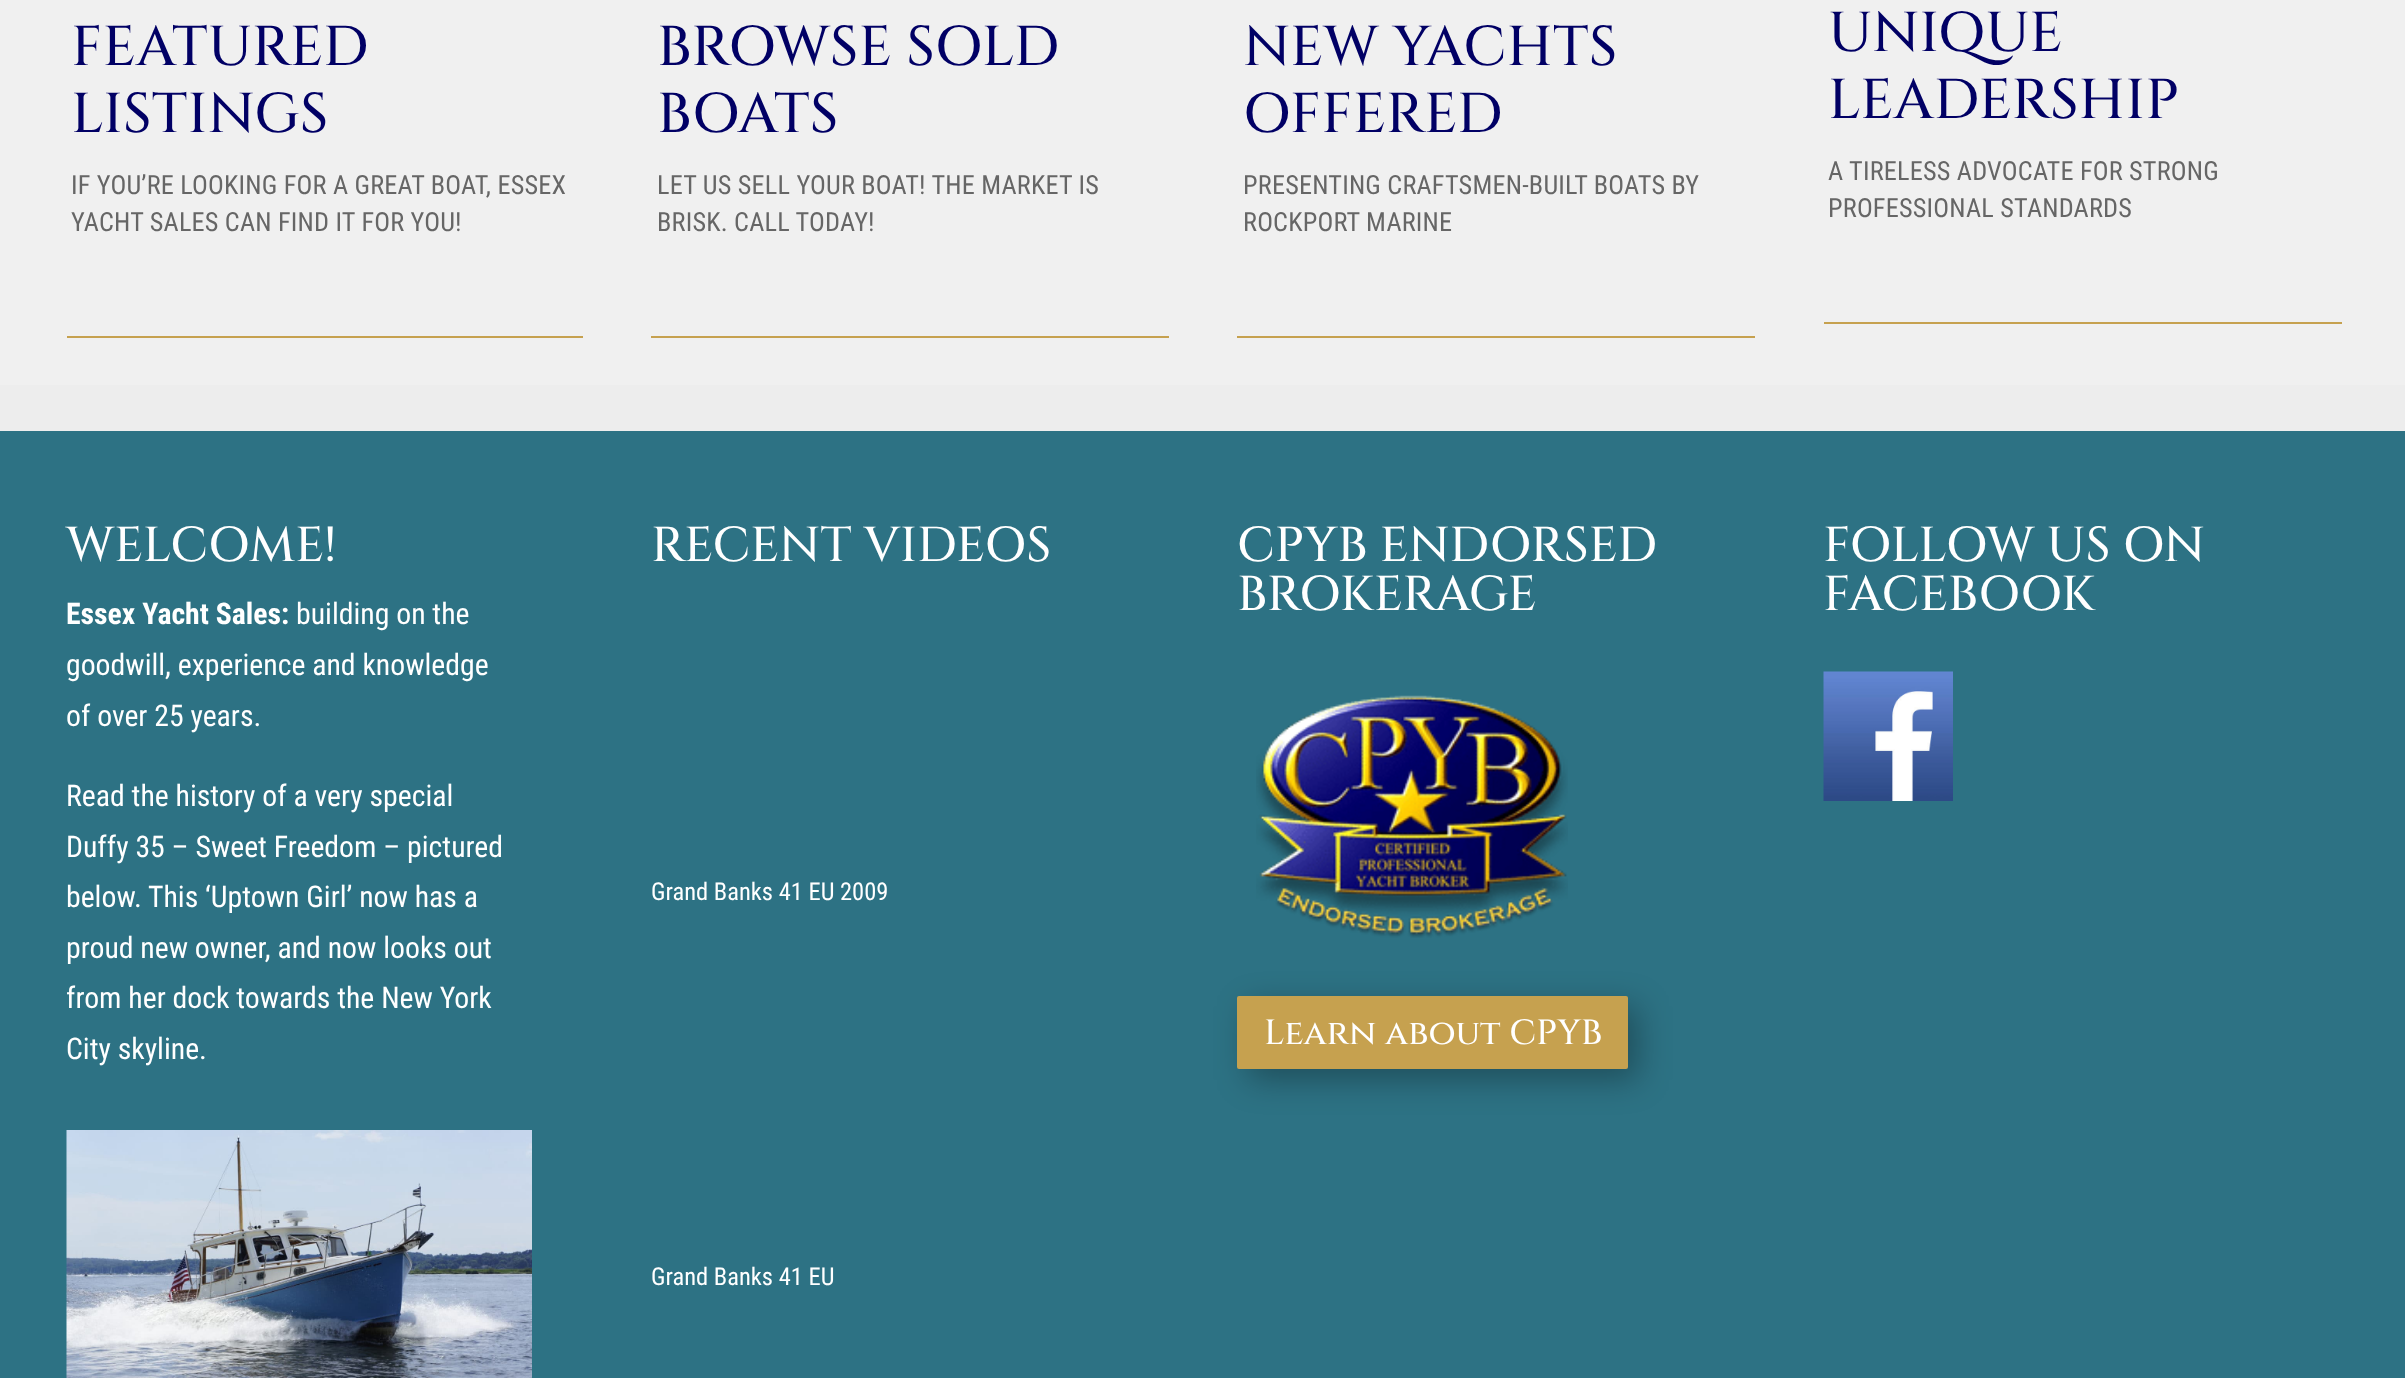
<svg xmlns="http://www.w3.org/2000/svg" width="2405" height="1378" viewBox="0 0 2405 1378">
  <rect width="100%" height="100%" fill="rgb(237,237,237)"/>
  <rect x="0" y="0" width="2405" height="385" fill="rgb(240,240,240)"/>
  <rect x="67" y="336" width="516" height="2" fill="rgb(198,161,79)"/>
  <g font-family="Cinzel" font-size="56" font-weight="500" letter-spacing="0.2" fill="rgb(1,0,101)">
    <text>
      <tspan x="71" y="65">FEATURED</tspan>
      <tspan x="71" y="132">LISTINGS</tspan>
    </text>
  </g>
  <g font-family="Roboto Condensed" font-size="26.25" letter-spacing="0.2" fill="rgb(102,102,102)">
    <text>
      <tspan x="71" y="194">IF YOU’RE LOOKING FOR A GREAT BOAT, ESSEX</tspan>
      <tspan x="71" y="231">YACHT SALES CAN FIND IT FOR YOU!</tspan>
    </text>
  </g>
  <rect x="651" y="336" width="518" height="2" fill="rgb(198,161,79)"/>
  <g font-family="Cinzel" font-size="56" font-weight="500" letter-spacing="0.2" fill="rgb(1,0,101)">
    <text>
      <tspan x="657" y="65">BROWSE SOLD</tspan>
      <tspan x="657" y="132">BOATS</tspan>
    </text>
  </g>
  <g font-family="Roboto Condensed" font-size="26.25" letter-spacing="0.2" fill="rgb(102,102,102)">
    <text>
      <tspan x="657" y="194">LET US SELL YOUR BOAT! THE MARKET IS</tspan>
      <tspan x="657" y="231">BRISK. CALL TODAY!</tspan>
    </text>
  </g>
  <rect x="1237" y="336" width="518" height="2" fill="rgb(198,161,79)"/>
  <g font-family="Cinzel" font-size="56" font-weight="500" letter-spacing="0.2" fill="rgb(1,0,101)">
    <text>
      <tspan x="1243" y="65">NEW YACHTS</tspan>
      <tspan x="1243" y="132">OFFERED</tspan>
    </text>
  </g>
  <g font-family="Roboto Condensed" font-size="26.25" letter-spacing="0.2" fill="rgb(102,102,102)">
    <text>
      <tspan x="1243" y="194">PRESENTING CRAFTSMEN-BUILT BOATS BY</tspan>
      <tspan x="1243" y="231">ROCKPORT MARINE</tspan>
    </text>
  </g>
  <rect x="1824" y="322" width="518" height="2" fill="rgb(198,161,79)"/>
  <g font-family="Cinzel" font-size="56" font-weight="500" letter-spacing="0.2" fill="rgb(1,0,101)">
    <text>
      <tspan x="1828" y="51">UNIQUE</tspan>
      <tspan x="1828" y="118">LEADERSHIP</tspan>
    </text>
  </g>
  <g font-family="Roboto Condensed" font-size="26.25" letter-spacing="0.2" fill="rgb(102,102,102)">
    <text>
      <tspan x="1828" y="180">A TIRELESS ADVOCATE FOR STRONG</tspan>
      <tspan x="1828" y="217">PROFESSIONAL STANDARDS</tspan>
    </text>
  </g>
  <rect x="0" y="431" width="2405" height="947" fill="rgb(45,114,132)"/>
  <text x="66" y="561" font-family="Cinzel" font-size="49" font-weight="500" fill="rgb(255,255,255)">WELCOME!</text>
  <text x="66" y="624" font-family="Roboto Condensed" font-size="29.75" font-weight="bold" fill="rgb(255,255,255)">Essex Yacht Sales:</text>
  <g font-family="Roboto Condensed" font-size="29.75" fill="rgb(255,255,255)">
    <text x="296" y="624">building on the</text>
    <text>
      <tspan x="66" y="675">goodwill, experience and knowledge</tspan>
      <tspan x="66" y="726">of over 25 years.</tspan>
    </text>
    <text>
      <tspan x="66" y="806">Read the history of a very special</tspan>
      <tspan x="66" y="857">Duffy 35 – Sweet Freedom – pictured</tspan>
      <tspan x="66" y="907">below. This ‘Uptown Girl’ now has a</tspan>
      <tspan x="66" y="958">proud new owner, and now looks out</tspan>
      <tspan x="66" y="1008">from her dock towards the New York</tspan>
      <tspan x="66" y="1059">City skyline.</tspan>
    </text>
  </g>
  <image x="66" y="1130" width="466" height="248" href="pic1.png"/>
  <text x="651" y="561" font-family="Cinzel" font-size="49" font-weight="500" fill="rgb(255,255,255)">RECENT VIDEOS</text>
  <g font-family="Roboto Condensed" font-size="24.5" fill="rgb(255,255,255)">
    <text x="651" y="900">Grand Banks 41 EU 2009</text>
    <text x="651" y="1285">Grand Banks 41 EU</text>
  </g>
  <g font-family="Cinzel" font-size="49" font-weight="500" fill="rgb(255,255,255)">
    <text>
      <tspan x="1237" y="561">CPYB ENDORSED</tspan>
      <tspan x="1237" y="610">BROKERAGE</tspan>
    </text>
  </g>
  <image x="1256" y="695" width="312" height="243" href="pic2.png"/>
  <rect x="1248" y="1006" width="390" height="74" rx="2" fill="rgba(0,0,0,0.3)" filter="blur(16px)"/>
  <rect x="1237" y="996" width="391" height="73" rx="2" fill="rgb(198,161,79)"/>
  <text x="1264" y="1044" font-family="Cinzel" font-size="35" font-weight="500" fill="rgb(255,255,255)">Learn about CPYB</text>
  <g font-family="Cinzel" font-size="49" font-weight="500" fill="rgb(255,255,255)">
    <text>
      <tspan x="1823" y="561">FOLLOW US ON</tspan>
      <tspan x="1823" y="610">FACEBOOK</tspan>
    </text>
  </g>
  <image x="1823" y="671" width="130" height="130" href="pic3.png"/>
</svg>
